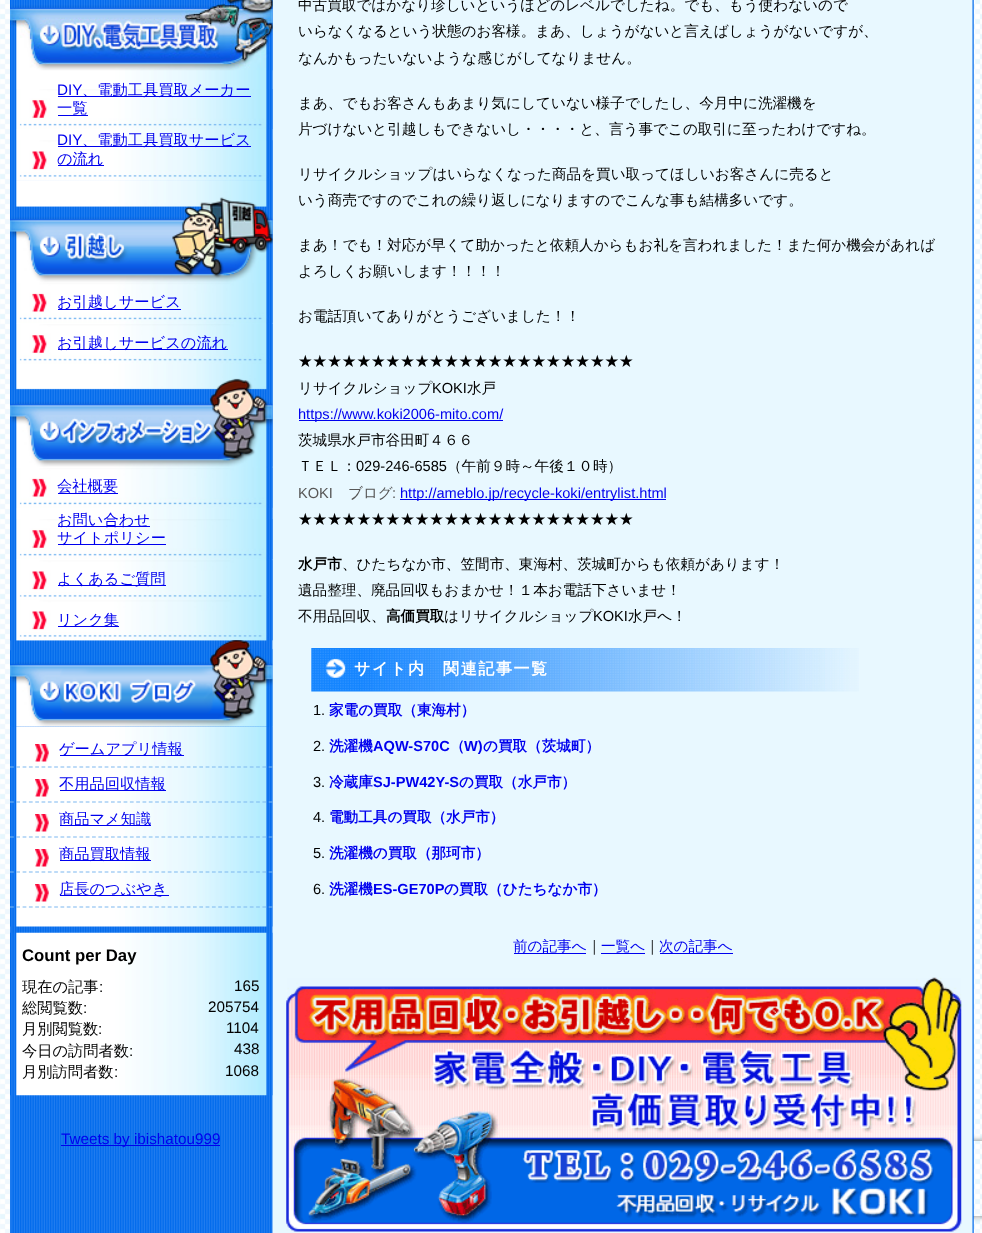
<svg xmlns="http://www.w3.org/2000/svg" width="982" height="1233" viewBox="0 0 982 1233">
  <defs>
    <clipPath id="clip1"><path d="M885 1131H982V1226H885ZM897.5 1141H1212.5C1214 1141 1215 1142 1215 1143.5V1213.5C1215 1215 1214 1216 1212.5 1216H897.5C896 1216 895 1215 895 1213.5V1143.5C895 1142 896 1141 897.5 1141Z" clip-rule="evenodd"/></clipPath>
  </defs>
  <rect width="100%" height="100%" fill="rgb(255,255,255)"/>
  <image x="0" y="0" width="982" height="1233" href="pic1.png"/>
  <g clip-path="url(#clip1)">
    <rect x="895" y="1141" width="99" height="75" rx="2.5" fill="rgb(128,128,128)" filter="blur(3px)"/>
  </g>
  <image x="10" y="0" width="964" height="1233" href="pic2.png"/>
  <image x="10" y="0" width="263" height="181" href="pic3.png"/>
  <image x="10" y="0" width="263" height="71" href="pic4.png"/>
  <image x="16" y="89" width="257" height="40" href="pic5.png"/>
  <text x="57" y="95" font-family="Liberation Sans" font-size="15.25" fill="rgb(0,0,238)">DIY</text>
  <rect x="58" y="96" width="193" height="1" fill="rgb(0,0,238)"/>
  <g font-family="WenQuanYi Zen Hei" font-size="15.25" font-weight="500" fill="rgb(0,0,238)">
    <text x="82" y="95">、電動工具買取メーカー</text>
    <text x="57" y="113">一覧</text>
  </g>
  <rect x="58" y="115" width="30" height="1" fill="rgb(0,0,238)"/>
  <image x="10" y="140" width="263" height="41" href="pic6.png"/>
  <text x="57" y="145" font-family="Liberation Sans" font-size="15.25" fill="rgb(0,0,238)">DIY</text>
  <rect x="58" y="146" width="193" height="1" fill="rgb(0,0,238)"/>
  <text x="82" y="145" font-family="WenQuanYi Zen Hei" font-size="15.25" font-weight="500" fill="rgb(0,0,238)">、電動工具買取サービス</text>
  <rect x="58" y="165" width="46" height="1" fill="rgb(0,0,238)"/>
  <text x="57" y="164" font-family="WenQuanYi Zen Hei" font-size="15.25" font-weight="500" fill="rgb(0,0,238)">の流れ</text>
  <image x="10" y="180" width="263" height="184" href="pic7.png"/>
  <image x="16" y="282" width="257" height="41" href="pic9.png"/>
  <image x="10" y="180" width="263" height="103" href="pic8.png"/>
  <rect x="58" y="309" width="123" height="1" fill="rgb(0,0,238)"/>
  <text x="57" y="307" font-family="WenQuanYi Zen Hei" font-size="15.25" font-weight="500" fill="rgb(0,0,238)">お引越しサービス</text>
  <image x="16" y="324" width="257" height="40" href="pic5.png"/>
  <rect x="58" y="349" width="170" height="1" fill="rgb(0,0,238)"/>
  <text x="57" y="348" font-family="WenQuanYi Zen Hei" font-size="15.25" font-weight="500" fill="rgb(0,0,238)">お引越しサービスの流れ</text>
  <image x="10" y="364" width="263" height="277" href="pic10.png"/>
  <image x="10" y="364" width="263" height="103" href="pic11.png"/>
  <image x="16" y="467" width="257" height="41" href="pic9.png"/>
  <rect x="58" y="493" width="60" height="1" fill="rgb(0,0,238)"/>
  <text x="57" y="491" font-family="WenQuanYi Zen Hei" font-size="15.25" font-weight="500" fill="rgb(0,0,238)">会社概要</text>
  <image x="16" y="519" width="257" height="40" href="pic5.png"/>
  <rect x="58" y="526" width="92" height="1" fill="rgb(0,0,238)"/>
  <text x="57" y="525" font-family="WenQuanYi Zen Hei" font-size="15.25" font-weight="500" fill="rgb(0,0,238)">お問い合わせ</text>
  <rect x="58" y="544" width="108" height="1" fill="rgb(0,0,238)"/>
  <text x="57" y="543" font-family="WenQuanYi Zen Hei" font-size="15.25" font-weight="500" fill="rgb(0,0,238)">サイトポリシー</text>
  <image x="16" y="560" width="257" height="41" href="pic12.png"/>
  <rect x="58" y="585" width="108" height="1" fill="rgb(0,0,238)"/>
  <text x="57" y="584" font-family="WenQuanYi Zen Hei" font-size="15.25" font-weight="500" fill="rgb(0,0,238)">よくあるご質問</text>
  <image x="10" y="600" width="263" height="41" href="pic13.png"/>
  <rect x="58" y="626" width="61" height="1" fill="rgb(0,0,238)"/>
  <text x="57" y="625" font-family="WenQuanYi Zen Hei" font-size="15.25" font-weight="500" fill="rgb(0,0,238)">リンク集</text>
  <image x="10" y="726" width="263" height="201" href="pic15.png"/>
  <image x="10" y="640" width="263" height="87" href="pic14.png"/>
  <image x="35" y="744" width="14" height="18" href="pic16.png"/>
  <path d="M10 767H272.5" fill="none" stroke="rgb(125,184,240)" stroke-width="1.2" stroke-dasharray="3.75 2.56"/>
  <rect x="60" y="755" width="124" height="1" fill="rgb(0,0,238)"/>
  <text x="59" y="754" font-family="WenQuanYi Zen Hei" font-size="15.25" font-weight="500" fill="rgb(0,0,238)">ゲームアプリ情報</text>
  <image x="35" y="779" width="14" height="18" href="pic16.png"/>
  <path d="M10 802H272.5" fill="none" stroke="rgb(125,184,240)" stroke-width="1.2" stroke-dasharray="3.75 2.56"/>
  <rect x="60" y="790" width="106" height="1" fill="rgb(0,0,238)"/>
  <text x="59" y="789" font-family="WenQuanYi Zen Hei" font-size="15.25" font-weight="500" fill="rgb(0,0,238)">不用品回収情報</text>
  <image x="35" y="814" width="14" height="18" href="pic16.png"/>
  <path d="M10 837H272.5" fill="none" stroke="rgb(125,184,240)" stroke-width="1.2" stroke-dasharray="3.75 2.56"/>
  <rect x="60" y="825" width="91" height="1" fill="rgb(0,0,238)"/>
  <text x="59" y="824" font-family="WenQuanYi Zen Hei" font-size="15.25" font-weight="500" fill="rgb(0,0,238)">商品マメ知識</text>
  <image x="35" y="849" width="14" height="18" href="pic16.png"/>
  <path d="M10 872H272.5" fill="none" stroke="rgb(125,184,240)" stroke-width="1.2" stroke-dasharray="3.75 2.56"/>
  <rect x="60" y="860" width="91" height="1" fill="rgb(0,0,238)"/>
  <text x="59" y="859" font-family="WenQuanYi Zen Hei" font-size="15.25" font-weight="500" fill="rgb(0,0,238)">商品買取情報</text>
  <image x="35" y="884" width="14" height="18" href="pic16.png"/>
  <path d="M10 907H272.5" fill="none" stroke="rgb(125,184,240)" stroke-width="1.2" stroke-dasharray="3.75 2.56"/>
  <rect x="60" y="895" width="109" height="1" fill="rgb(0,0,238)"/>
  <text x="59" y="894" font-family="WenQuanYi Zen Hei" font-size="15.25" font-weight="500" fill="rgb(0,0,238)">店長のつぶやき</text>
  <image x="10" y="932" width="263" height="164" href="pic17.png"/>
  <text x="22" y="961" font-family="Liberation Sans" font-size="16.75" font-weight="bold" fill="rgb(0,0,0)">Count per Day</text>
  <text x="22" y="992" font-family="WenQuanYi Zen Hei" font-size="15.25" font-weight="500" fill="rgb(0,0,0)">現在の記事</text>
  <g font-family="Liberation Sans" font-size="15.25" fill="rgb(0,0,0)">
    <text x="99" y="992">:</text>
    <text x="234" y="991">165</text>
  </g>
  <text x="22" y="1013" font-family="WenQuanYi Zen Hei" font-size="15.25" font-weight="500" fill="rgb(0,0,0)">総閲覧数</text>
  <g font-family="Liberation Sans" font-size="15.25" fill="rgb(0,0,0)">
    <text x="83" y="1013">:</text>
    <text x="208" y="1012">205754</text>
  </g>
  <text x="22" y="1034" font-family="WenQuanYi Zen Hei" font-size="15.25" font-weight="500" fill="rgb(0,0,0)">月別閲覧数</text>
  <g font-family="Liberation Sans" font-size="15.25" fill="rgb(0,0,0)">
    <text x="98" y="1034">:</text>
    <text x="226" y="1033">1104</text>
  </g>
  <text x="22" y="1056" font-family="WenQuanYi Zen Hei" font-size="15.25" font-weight="500" fill="rgb(0,0,0)">今日の訪問者数</text>
  <g font-family="Liberation Sans" font-size="15.25" fill="rgb(0,0,0)">
    <text x="129" y="1056">:</text>
    <text x="234" y="1054">438</text>
  </g>
  <text x="22" y="1077" font-family="WenQuanYi Zen Hei" font-size="15.25" font-weight="500" fill="rgb(0,0,0)">月別訪問者数</text>
  <g font-family="Liberation Sans" font-size="15.25" fill="rgb(0,0,0)">
    <text x="114" y="1077">:</text>
    <text x="225" y="1076">1068</text>
  </g>
  <rect x="61" y="1145" width="159" height="1" fill="rgb(0,0,238)"/>
  <text x="61" y="1144" font-family="Liberation Sans" font-size="15.25" fill="rgb(0,0,238)">Tweets by ibishatou999</text>
  <g font-family="WenQuanYi Zen Hei" font-size="14.6" font-weight="500" fill="rgb(0,0,0)">
    <text>
      <tspan x="298" y="10">中古買取ではかなり珍しいというほどのレベルでしたね。でも、もう使わないので</tspan>
      <tspan x="298" y="36">いらなくなるという状態のお客様。まあ、しょうがないと言えばしょうがないですが、</tspan>
      <tspan x="298" y="63">なんかもったいないような感じがしてなりません。</tspan>
    </text>
    <text>
      <tspan x="298" y="108">まあ、でもお客さんもあまり気にしていない様子でしたし、今月中に洗濯機を</tspan>
      <tspan x="298" y="134">片づけないと引越しもできないし・・・・と、言う事でこの取引に至ったわけですね。</tspan>
    </text>
    <text>
      <tspan x="298" y="179">リサイクルショップはいらなくなった商品を買い取ってほしいお客さんに売ると</tspan>
      <tspan x="298" y="205">いう商売ですのでこれの繰り返しになりますのでこんな事も結構多いです。</tspan>
    </text>
    <text>
      <tspan x="298" y="250">まあ！でも！対応が早くて助かったと依頼人からもお礼を言われました！また何か機会があれば</tspan>
      <tspan x="298" y="276">よろしくお願いします！！！！</tspan>
    </text>
    <text x="298" y="321">お電話頂いてありがとうございました！！</text>
    <text>
      <tspan x="298" y="366">★★★★★★★★★★★★★★★★★★★★★★★</tspan>
      <tspan x="298" y="393">リサイクルショップ</tspan>
    </text>
  </g>
  <text x="432" y="393" font-family="Liberation Sans" font-size="14.6" fill="rgb(0,0,0)">KOKI</text>
  <text x="467" y="393" font-family="WenQuanYi Zen Hei" font-size="14.6" font-weight="500" fill="rgb(0,0,0)">水戸</text>
  <rect x="299" y="420" width="204" height="1" fill="rgb(0,0,238)"/>
  <text x="298" y="419" font-family="Liberation Sans" font-size="14.6" fill="rgb(0,0,238)">https://www.koki2006-mito.com/</text>
  <g font-family="WenQuanYi Zen Hei" font-size="14.6" font-weight="500" fill="rgb(0,0,0)">
    <text>
      <tspan x="298" y="445">茨城県水戸市谷田町４６６</tspan>
      <tspan x="298" y="471">ＴＥＬ：</tspan>
    </text>
  </g>
  <text x="356" y="471" font-family="Liberation Sans" font-size="14.6" fill="rgb(0,0,0)">029-246-6585</text>
  <text x="447" y="471" font-family="WenQuanYi Zen Hei" font-size="14.6" font-weight="500" fill="rgb(0,0,0)">（午前９時～午後１０時）</text>
  <text x="298" y="498" font-family="Liberation Sans" font-size="14.6" fill="rgb(87,87,87)">KOKI</text>
  <text x="348" y="498" font-family="WenQuanYi Zen Hei" font-size="14.6" font-weight="500" fill="rgb(87,87,87)">ブログ</text>
  <text x="392" y="498" font-family="Liberation Sans" font-size="14.6" fill="rgb(87,87,87)">:</text>
  <rect x="400" y="499" width="266" height="1" fill="rgb(0,0,238)"/>
  <text x="400" y="498" font-family="Liberation Sans" font-size="14.6" fill="rgb(0,0,238)">http://ameblo.jp/recycle-koki/entrylist.html</text>
  <text x="298" y="524" font-family="WenQuanYi Zen Hei" font-size="14.6" font-weight="500" fill="rgb(0,0,0)">★★★★★★★★★★★★★★★★★★★★★★★</text>
  <text x="298" y="569" font-family="WenQuanYi Zen Hei" font-size="14.6" font-weight="bold" fill="rgb(0,0,0)">水戸市</text>
  <g font-family="WenQuanYi Zen Hei" font-size="14.6" font-weight="500" fill="rgb(0,0,0)">
    <text x="342" y="569">、ひたちなか市、笠間市、東海村、茨城町からも依頼があります！</text>
    <text>
      <tspan x="298" y="595">遺品整理、廃品回収もおまかせ！１本お電話下さいませ！</tspan>
      <tspan x="298" y="621">不用品回収、</tspan>
    </text>
  </g>
  <text x="386" y="621" font-family="WenQuanYi Zen Hei" font-size="14.6" font-weight="bold" fill="rgb(0,0,0)">高価買取</text>
  <text x="444" y="621" font-family="WenQuanYi Zen Hei" font-size="14.6" font-weight="500" fill="rgb(0,0,0)">はリサイクルショップ</text>
  <text x="593" y="621" font-family="Liberation Sans" font-size="14.6" fill="rgb(0,0,0)">KOKI</text>
  <text x="628" y="621" font-family="WenQuanYi Zen Hei" font-size="14.6" font-weight="500" fill="rgb(0,0,0)">水戸へ！</text>
  <image x="311" y="648" width="548" height="44" href="pic18.png"/>
  <text x="354" y="674" font-family="WenQuanYi Zen Hei" font-size="16" font-weight="bold" letter-spacing="1.6" fill="rgb(255,255,255)">サイト内　関連記事一覧</text>
  <text x="313" y="715" font-family="Liberation Sans" font-size="14.6" fill="rgb(0,0,0)">1.</text>
  <text x="329" y="715" font-family="WenQuanYi Zen Hei" font-size="14.6" font-weight="bold" fill="rgb(0,0,238)">家電の買取（東海村）</text>
  <text x="313" y="751" font-family="Liberation Sans" font-size="14.6" fill="rgb(0,0,0)">2.</text>
  <text x="329" y="751" font-family="WenQuanYi Zen Hei" font-size="14.6" font-weight="bold" fill="rgb(0,0,238)">洗濯機</text>
  <text x="373" y="751" font-family="Liberation Sans" font-size="14.6" font-weight="bold" fill="rgb(0,0,238)">AQW-S70C</text>
  <text x="450" y="751" font-family="WenQuanYi Zen Hei" font-size="14.6" font-weight="bold" fill="rgb(0,0,238)">（</text>
  <text x="464" y="751" font-family="Liberation Sans" font-size="14.6" font-weight="bold" fill="rgb(0,0,238)">W)</text>
  <text x="483" y="751" font-family="WenQuanYi Zen Hei" font-size="14.6" font-weight="bold" fill="rgb(0,0,238)">の買取（茨城町）</text>
  <text x="313" y="787" font-family="Liberation Sans" font-size="14.6" fill="rgb(0,0,0)">3.</text>
  <text x="329" y="787" font-family="WenQuanYi Zen Hei" font-size="14.6" font-weight="bold" fill="rgb(0,0,238)">冷蔵庫</text>
  <text x="373" y="787" font-family="Liberation Sans" font-size="14.6" font-weight="bold" fill="rgb(0,0,238)">SJ-PW42Y-S</text>
  <text x="459" y="787" font-family="WenQuanYi Zen Hei" font-size="14.6" font-weight="bold" fill="rgb(0,0,238)">の買取（水戸市）</text>
  <text x="313" y="822" font-family="Liberation Sans" font-size="14.6" fill="rgb(0,0,0)">4.</text>
  <text x="329" y="822" font-family="WenQuanYi Zen Hei" font-size="14.6" font-weight="bold" fill="rgb(0,0,238)">電動工具の買取（水戸市）</text>
  <text x="313" y="858" font-family="Liberation Sans" font-size="14.6" fill="rgb(0,0,0)">5.</text>
  <text x="329" y="858" font-family="WenQuanYi Zen Hei" font-size="14.6" font-weight="bold" fill="rgb(0,0,238)">洗濯機の買取（那珂市）</text>
  <text x="313" y="894" font-family="Liberation Sans" font-size="14.6" fill="rgb(0,0,0)">6.</text>
  <text x="329" y="894" font-family="WenQuanYi Zen Hei" font-size="14.6" font-weight="bold" fill="rgb(0,0,238)">洗濯機</text>
  <text x="373" y="894" font-family="Liberation Sans" font-size="14.6" font-weight="bold" fill="rgb(0,0,238)">ES-GE70P</text>
  <text x="444" y="894" font-family="WenQuanYi Zen Hei" font-size="14.6" font-weight="bold" fill="rgb(0,0,238)">の買取（ひたちなか市）</text>
  <text x="513" y="951" font-family="WenQuanYi Zen Hei" font-size="14.6" font-weight="500" fill="rgb(0,0,238)">前の記事へ</text>
  <rect x="514" y="953" width="72" height="1" fill="rgb(0,0,238)"/>
  <text x="587" y="951" font-family="WenQuanYi Zen Hei" font-size="14.6" font-weight="500" fill="rgb(0,0,0)">｜</text>
  <text x="601" y="951" font-family="WenQuanYi Zen Hei" font-size="14.6" font-weight="500" fill="rgb(0,0,238)">一覧へ</text>
  <rect x="601" y="953" width="44" height="1" fill="rgb(0,0,238)"/>
  <text x="645" y="951" font-family="WenQuanYi Zen Hei" font-size="14.6" font-weight="500" fill="rgb(0,0,0)">｜</text>
  <rect x="660" y="953" width="73" height="1" fill="rgb(0,0,238)"/>
  <text x="659" y="951" font-family="WenQuanYi Zen Hei" font-size="14.6" font-weight="500" fill="rgb(0,0,238)">次の記事へ</text>
  <image x="286" y="977" width="676" height="255" href="pic19.png"/>
</svg>
